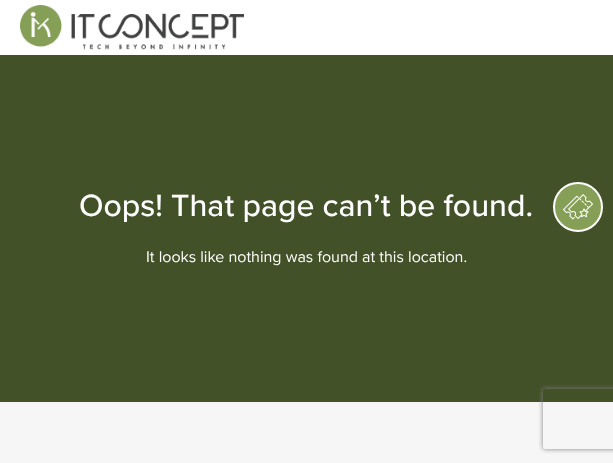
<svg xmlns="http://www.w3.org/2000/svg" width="613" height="463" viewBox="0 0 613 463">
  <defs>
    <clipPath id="clip1"><path d="M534 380H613V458H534ZM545 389H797C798 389 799 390 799 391V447C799 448 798 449 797 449H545C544 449 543 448 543 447V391C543 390 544 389 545 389Z" clip-rule="evenodd"/></clipPath>
  </defs>
  <rect width="100%" height="100%" fill="rgb(255,255,255)"/>
  <image x="20" y="5" width="224" height="45" href="pic1.png"/>
  <rect x="0" y="402" width="613" height="61" fill="rgb(246,246,246)"/>
  <rect x="0" y="55" width="613" height="347" fill="rgb(67,81,41)"/>
  <circle cx="578" cy="207" r="24" fill="rgb(134,159,86)" stroke="rgb(255,255,255)" stroke-width="2"/>
  <image x="563" y="194" width="30" height="26" href="pic2.png"/>
  <text x="79" y="216" font-family="Proxima Nova" font-size="32" font-weight="500" fill="rgb(255,255,255)">Oops! That page can’t be found.</text>
  <text x="146" y="262" font-family="Proxima Nova" font-size="16" fill="rgb(255,255,255)">It looks like nothing was found at this location.</text>
  <g clip-path="url(#clip1)">
    <rect x="543" y="389" width="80" height="60" rx="2" fill="rgb(128,128,128)" filter="blur(2.5px)"/>
  </g>
</svg>
